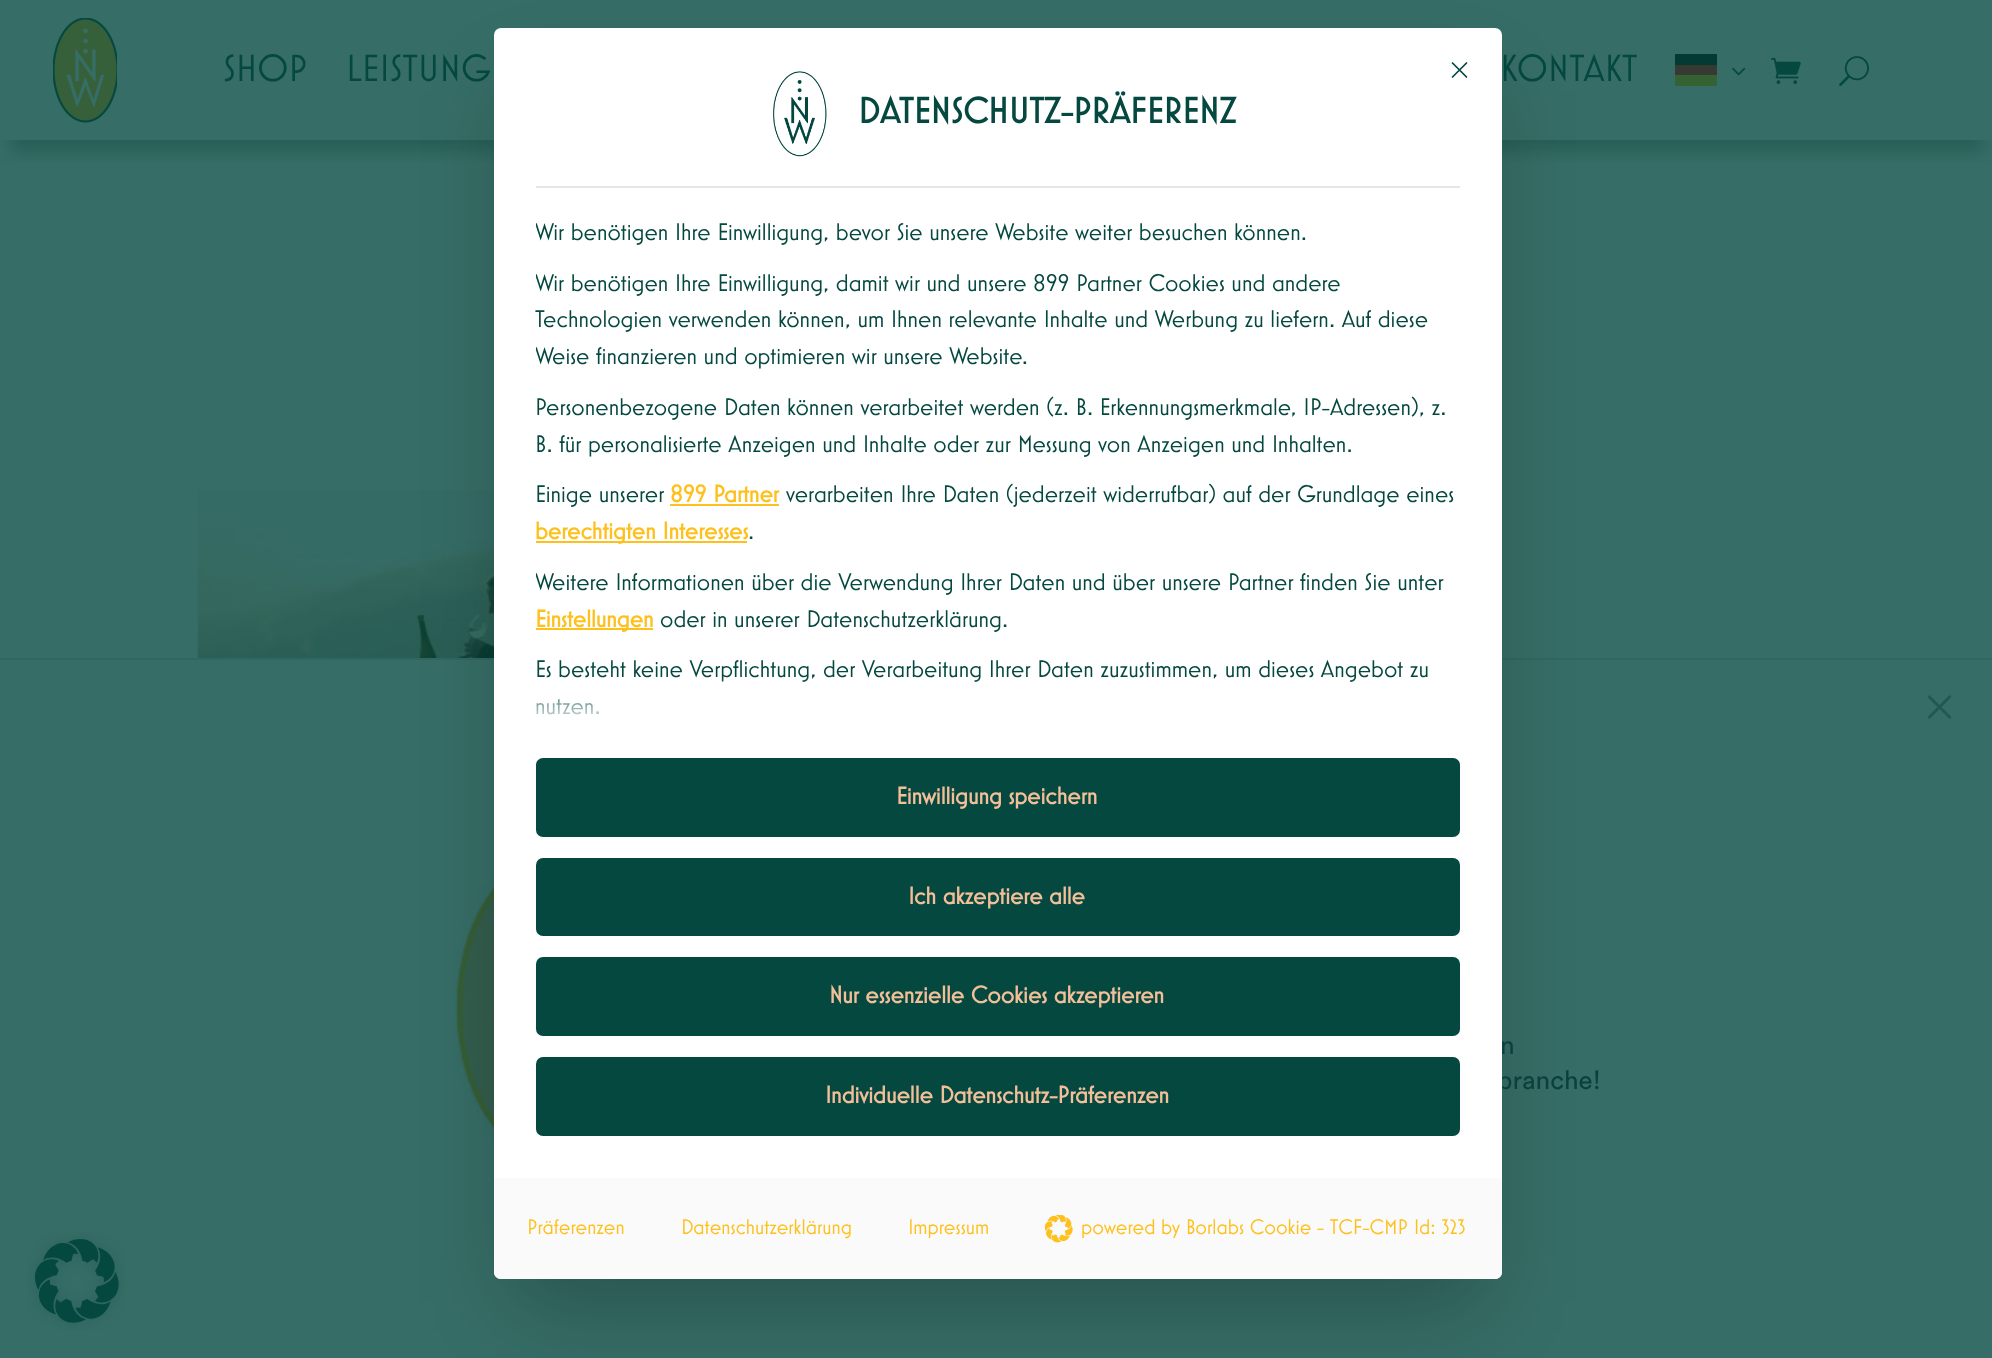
<svg xmlns="http://www.w3.org/2000/svg" width="1992" height="1358" viewBox="0 0 1992 1358">
  <defs>
    <clipPath id="clip1"><rect x="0" y="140" width="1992" height="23"/></clipPath>
    <clipPath id="clip2"><rect x="536" y="187" width="924" height="543"/></clipPath>
    <linearGradient id="g1" gradientUnits="userSpaceOnUse" x1="998" y1="730" x2="998" y2="677"><stop offset="0" stop-color="rgb(255,255,255)"/><stop offset="1" stop-color="rgb(255,255,255)" stop-opacity="0"/></linearGradient>
  </defs>
  <rect width="100%" height="100%" fill="rgb(54,109,102)"/>
  <g clip-path="url(#clip1)">
    <rect x="11" y="32" width="1972" height="119" fill="rgba(3,58,51,0.3)" filter="blur(8px)"/>
  </g>
  <image x="53" y="18" width="64" height="105" href="pic1.png"/>
  <g font-family="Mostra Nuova" font-size="38.5" fill="rgb(4,72,64)">
    <text x="223" y="81">SHOP</text>
    <text x="346" y="81">LEISTUNG</text>
    <text x="1500" y="81">KONTAKT</text>
  </g>
  <rect x="1675" y="75" width="42" height="11" fill="rgb(54,98,51)"/>
  <rect x="1675" y="54" width="42" height="11" fill="rgb(3,58,51)"/>
  <rect x="1675" y="65" width="42" height="10" fill="rgb(54,58,51)"/>
  <image x="1732" y="67" width="14" height="9" href="pic2.png"/>
  <image x="1771" y="58" width="30" height="26" href="pic3.png"/>
  <image x="1839" y="56" width="30" height="30" href="pic4.png"/>
  <image x="197" y="490" width="297" height="168" href="pic5.png"/>
  <rect x="0" y="658" width="1992" height="2" fill="rgb(49,103,97)"/>
  <image x="455" y="855" width="39" height="309" href="pic8.png"/>
  <rect x="515" y="93" width="966" height="1209" fill="rgba(0,0,0,0.25)" filter="blur(44px)"/>
  <text x="1497" y="1089" font-family="Circular" font-size="26" fill="rgb(11,64,62)">branche!</text>
  <rect x="494" y="28" width="1008" height="1251" rx="7" fill="rgb(255,255,255)"/>
  <path d="M1452.5 77L1466.5 63M1452.5 63L1466.5 77" fill="none" stroke="rgb(4,72,64)" stroke-width="1.7" stroke-linecap="round" stroke-linejoin="round"/>
  <rect x="536" y="186" width="924" height="2" fill="rgb(230,230,230)"/>
  <image x="773" y="71" width="54" height="86" href="pic6.png"/>
  <text x="858" y="123" font-family="Mostra Nuova" font-size="36.75" font-weight="bold" fill="rgb(4,72,64)">DATENSCHUTZ-PRÄFERENZ</text>
  <g clip-path="url(#clip2)">
    <g font-family="Mostra Nuova" font-size="24.5" fill="rgb(4,72,64)">
      <text x="535" y="240">Wir benötigen Ihre Einwilligung, bevor Sie unsere Website weiter besuchen können.</text>
      <text x="535" y="291">Wir benötigen Ihre Einwilligung, damit wir und unsere 899 Partner Cookies und andere</text>
    </g>
  </g>
  <text x="535" y="327" font-family="Mostra Nuova" font-size="24.5" fill="rgb(4,72,64)">Technologien verwenden können, um Ihnen relevante Inhalte und Werbung zu liefern. Auf diese</text>
  <g clip-path="url(#clip2)">
    <text x="535" y="364" font-family="Mostra Nuova" font-size="24.5" fill="rgb(4,72,64)">Weise finanzieren und optimieren wir unsere Website.</text>
  </g>
  <g font-family="Mostra Nuova" font-size="24.5" fill="rgb(4,72,64)">
    <text>
      <tspan x="535" y="415">Personenbezogene Daten können verarbeitet werden (z. B. Erkennungsmerkmale, IP-Adressen), z.</tspan>
      <tspan x="535" y="452">B. für personalisierte Anzeigen und Inhalte oder zur Messung von Anzeigen und Inhalten.</tspan>
    </text>
    <text x="535" y="502">Einige unserer</text>
  </g>
  <text x="670" y="502" font-family="Mostra Nuova" font-size="24.5" font-weight="bold" fill="rgb(254,192,29)">899 Partner</text>
  <rect x="670" y="504" width="109" height="2" fill="rgb(254,192,29)"/>
  <text x="786" y="502" font-family="Mostra Nuova" font-size="24.5" fill="rgb(4,72,64)">verarbeiten Ihre Daten (jederzeit widerrufbar) auf der Grundlage eines</text>
  <rect x="536" y="541" width="211" height="2" fill="rgb(254,192,29)"/>
  <text x="535" y="539" font-family="Mostra Nuova" font-size="24.5" font-weight="bold" fill="rgb(254,192,29)">berechtigten Interesses</text>
  <text x="748" y="539" font-family="Mostra Nuova" font-size="24.5" fill="rgb(4,72,64)">.</text>
  <g clip-path="url(#clip2)">
    <text x="535" y="590" font-family="Mostra Nuova" font-size="24.5" fill="rgb(4,72,64)">Weitere Informationen über die Verwendung Ihrer Daten und über unsere Partner finden Sie unter</text>
  </g>
  <rect x="536" y="628" width="117" height="2" fill="rgb(254,192,29)"/>
  <text x="535" y="627" font-family="Mostra Nuova" font-size="24.5" font-weight="bold" fill="rgb(254,192,29)">Einstellungen</text>
  <g font-family="Mostra Nuova" font-size="24.5" fill="rgb(4,72,64)">
    <text x="660" y="627">oder in unserer Datenschutzerklärung.</text>
    <text>
      <tspan x="535" y="677">Es besteht keine Verpflichtung, der Verarbeitung Ihrer Daten zuzustimmen, um dieses Angebot zu</tspan>
      <tspan x="535" y="714">nutzen.</tspan>
    </text>
  </g>
  <rect x="536" y="678" width="820" height="37" fill="url(#g1)"/>
  <rect x="536" y="758" width="924" height="79" rx="7" fill="rgb(4,72,64)"/>
  <text x="896" y="804" font-family="Mostra Nuova" font-size="24.5" font-weight="bold" fill="rgb(243,191,152)">Einwilligung speichern</text>
  <rect x="536" y="858" width="924" height="78" rx="7" fill="rgb(4,72,64)"/>
  <text x="908" y="904" font-family="Mostra Nuova" font-size="24.5" font-weight="bold" fill="rgb(243,191,152)">Ich akzeptiere alle</text>
  <rect x="536" y="957" width="924" height="79" rx="7" fill="rgb(4,72,64)"/>
  <text x="829" y="1003" font-family="Mostra Nuova" font-size="24.5" font-weight="bold" fill="rgb(243,191,152)">Nur essenzielle Cookies akzeptieren</text>
  <rect x="536" y="1057" width="924" height="79" rx="7" fill="rgb(4,72,64)"/>
  <text x="825" y="1103" font-family="Mostra Nuova" font-size="24.5" font-weight="bold" fill="rgb(243,191,152)">Individuelle Datenschutz-Präferenzen</text>
  <path d="M494 1178H1502V1272C1502 1276 1499 1279 1495 1279H501C497 1279 494 1276 494 1272Z" fill="rgb(250,250,250)"/>
  <g font-family="Mostra Nuova" font-size="21.4" fill="rgb(254,192,29)">
    <text x="527" y="1234">Präferenzen</text>
    <text x="681" y="1234">Datenschutzerklärung</text>
    <text x="908" y="1234">Impressum</text>
  </g>
  <image x="1045" y="1215" width="28" height="28" href="pic7.png"/>
  <text x="1081" y="1234" font-family="Mostra Nuova" font-size="21.4" fill="rgb(254,192,29)">powered by Borlabs Cookie - TCF-CMP Id: 323</text>
  <path d="M1928.5 696L1950.5 718M1950.5 696L1928.5 718" fill="none" stroke="rgb(33,88,81)" stroke-width="2.6"/>
  <text x="1500" y="1054" font-family="Circular" font-size="26" fill="rgb(11,64,62)">n</text>
  <image x="28" y="1232" width="98" height="98" href="pic9.png"/>
</svg>
